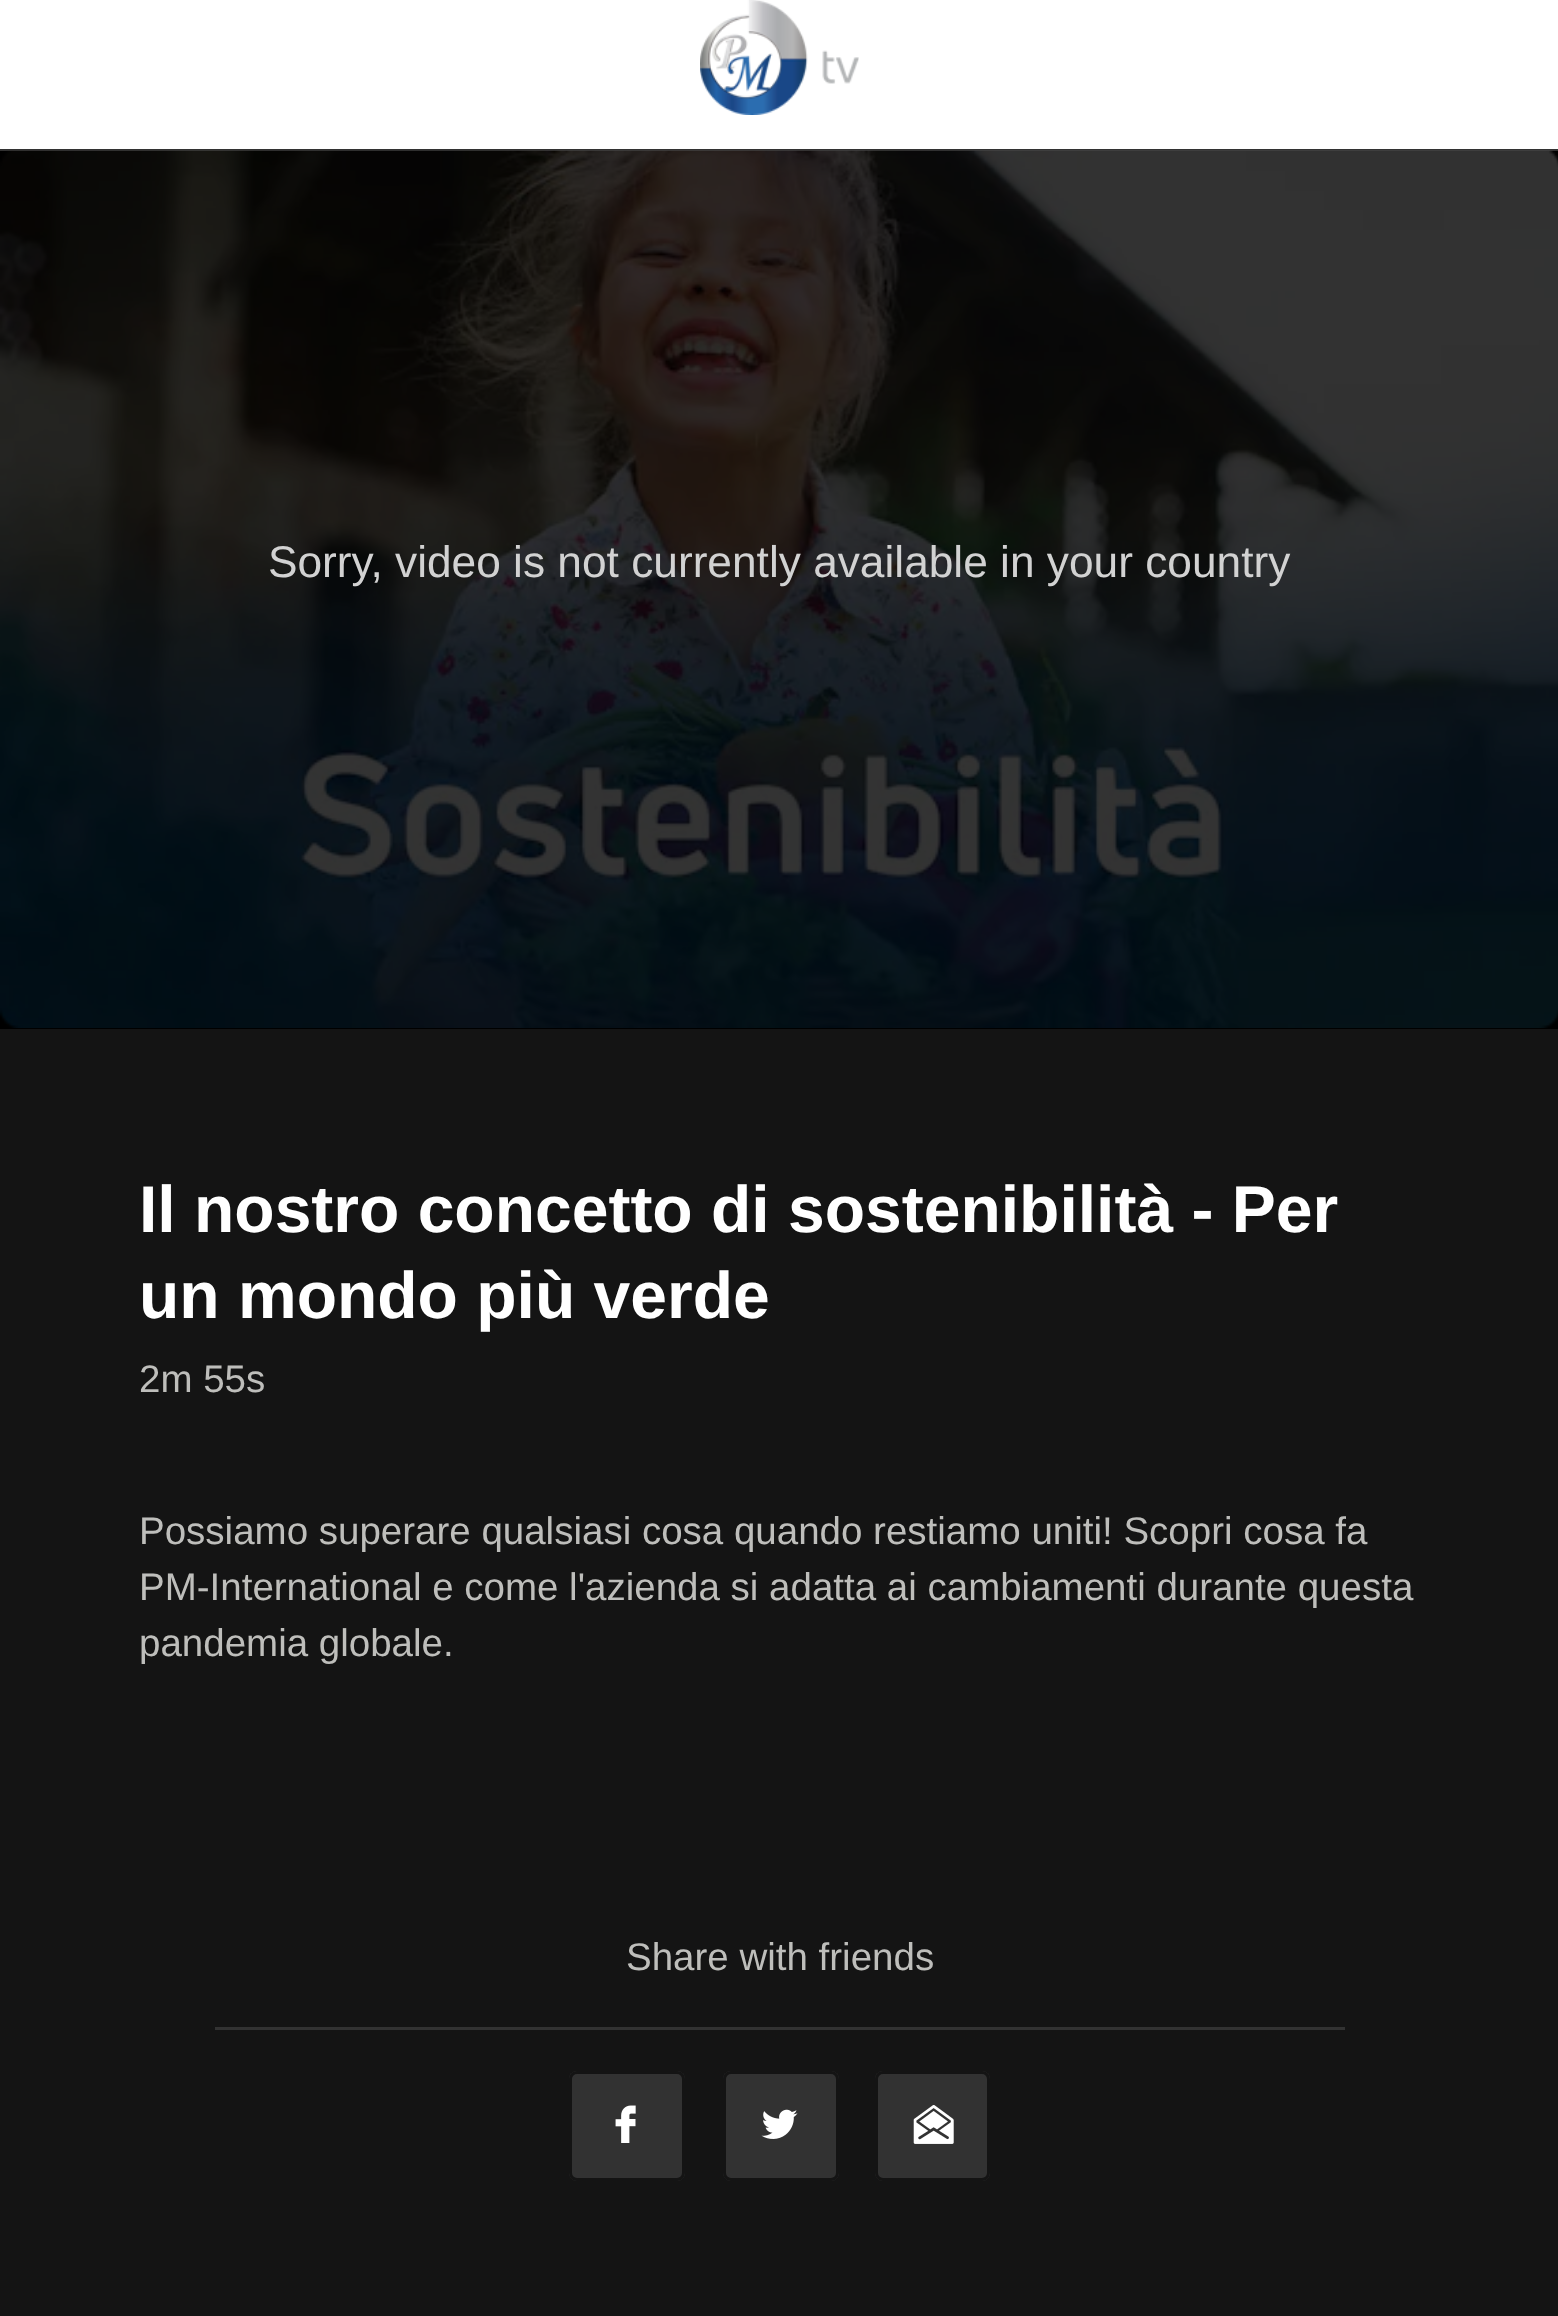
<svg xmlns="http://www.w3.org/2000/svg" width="1558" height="2316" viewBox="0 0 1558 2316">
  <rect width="100%" height="100%" fill="rgb(20,20,20)"/>
  <rect x="0" y="0" width="1558" height="149" fill="rgb(255,255,255)"/>
  <rect x="0" y="149" width="1558" height="2" fill="rgb(50,50,50)"/>
  <image x="700" y="0" width="159" height="115" href="pic1.png"/>
  <rect x="0" y="151" width="1558" height="878" fill="rgb(0,0,0)"/>
  <image x="0" y="150" width="1558" height="878" href="pic2.png"/>
  <text x="268" y="577" font-family="Liberation Sans" font-size="44.25" fill="rgb(210,210,210)">Sorry, video is not currently available in your country</text>
  <g font-family="Liberation Sans" font-size="66" font-weight="bold" fill="rgb(255,255,255)">
    <text>
      <tspan x="139" y="1232">Il nostro concetto di sostenibilità - Per</tspan>
      <tspan x="139" y="1318">un mondo più verde</tspan>
    </text>
  </g>
  <g font-family="Liberation Sans" font-size="38.5" fill="rgb(190,190,187)">
    <text x="139" y="1392">2m 55s</text>
    <text>
      <tspan x="139" y="1544">Possiamo superare qualsiasi cosa quando restiamo uniti! Scopri cosa fa</tspan>
      <tspan x="139" y="1600">PM-International e come l'azienda si adatta ai cambiamenti durante questa</tspan>
      <tspan x="139" y="1656">pandemia globale.</tspan>
    </text>
  </g>
  <rect x="215" y="2027" width="1130" height="3" fill="rgb(50,50,50)"/>
  <text x="626" y="1970" font-family="Liberation Sans" font-size="38.5" fill="rgb(190,190,187)">Share with friends</text>
  <rect x="569" y="2071" width="116" height="110" rx="8" fill="rgb(50,50,50)"/>
  <image x="615" y="2105" width="21" height="38" href="pic3.png"/>
  <rect x="570.5" y="2072.5" width="113" height="107" rx="6.5" fill="none" stroke="rgb(20,20,20)" stroke-width="3"/>
  <rect x="723" y="2071" width="116" height="110" rx="8" fill="rgb(50,50,50)"/>
  <image x="761" y="2109" width="37" height="30" href="pic4.png"/>
  <rect x="724.5" y="2072.5" width="113" height="107" rx="6.5" fill="none" stroke="rgb(20,20,20)" stroke-width="3"/>
  <rect x="875" y="2071" width="115" height="110" rx="8" fill="rgb(50,50,50)"/>
  <image x="913" y="2105" width="41" height="39" href="pic5.png"/>
  <rect x="876.5" y="2072.5" width="112" height="107" rx="6.5" fill="none" stroke="rgb(20,20,20)" stroke-width="3"/>
</svg>
